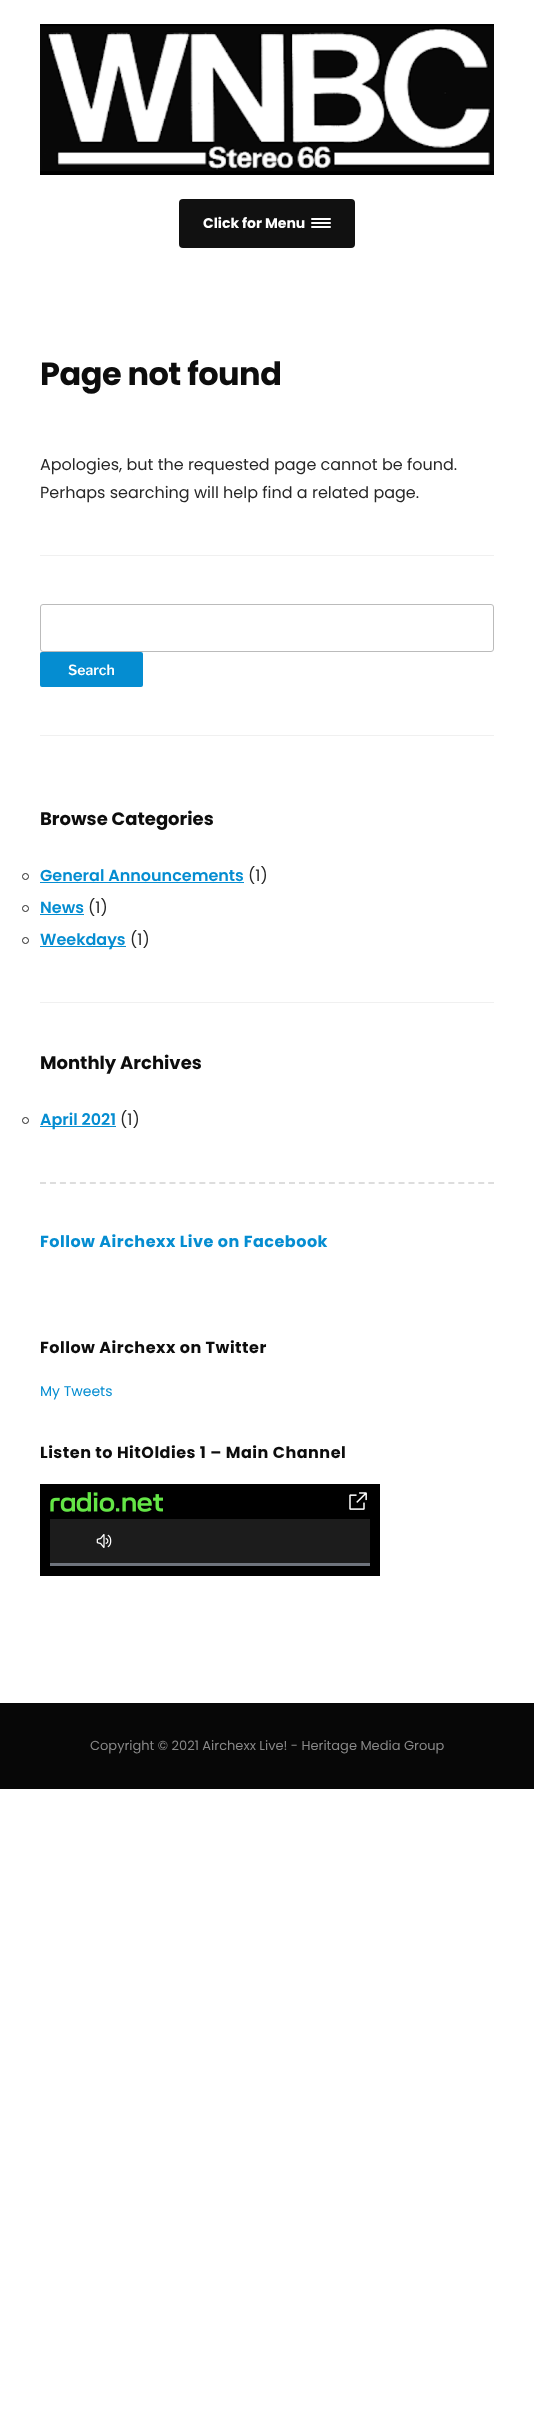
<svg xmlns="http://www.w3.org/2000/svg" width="534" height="2419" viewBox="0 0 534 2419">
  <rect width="100%" height="100%" fill="rgb(255,255,255)"/>
  <image x="40" y="24" width="454" height="151" href="pic1.png"/>
  <rect x="179" y="199" width="176" height="49" rx="4" fill="rgb(17,17,17)"/>
  <text x="203" y="228" font-family="Poppins" font-size="14" font-weight="bold" fill="rgb(255,255,255)">Click for Menu</text>
  <path d="M311 219.5C310 221 313 221 315 221H327C329 221 332 221 331 219.5L330 220H312Z" fill="rgb(13,13,13)"/>
  <rect x="311" y="218" width="20" height="2" rx="1" fill="rgb(255,255,255)"/>
  <path d="M311 223.5C310 225 313 225 315 225H327C329 225 332 225 331 223.5L330 224H312Z" fill="rgb(13,13,13)"/>
  <rect x="311" y="222" width="20" height="2" rx="1" fill="rgb(255,255,255)"/>
  <path d="M311 227.5C310 229 313 229 315 229H327C329 229 332 229 331 227.5L330 228H312Z" fill="rgb(13,13,13)"/>
  <rect x="311" y="226" width="20" height="2" rx="1" fill="rgb(255,255,255)"/>
  <text x="40" y="385" font-family="Poppins" font-size="32" font-weight="bold" letter-spacing="-0.5" fill="rgb(13,13,13)">Page not found</text>
  <g font-family="Poppins" font-size="16" fill="rgb(39,39,39)">
    <text>
      <tspan x="40" y="470">Apologies, but the requested page cannot be found.</tspan>
      <tspan x="40" y="498">Perhaps searching will help find a related page.</tspan>
    </text>
  </g>
  <rect x="40" y="555" width="454" height="1" fill="rgb(240,240,240)"/>
  <rect x="40.5" y="604.5" width="453" height="47" rx="2.5" fill="none" stroke="rgb(187,187,187)"/>
  <rect x="40" y="652" width="103" height="35" rx="2" fill="rgb(5,141,209)"/>
  <text x="68" y="675" font-family="Libre Franklin" font-size="14" font-weight="600" fill="rgb(255,255,255)">Search</text>
  <rect x="40" y="735" width="454" height="1" fill="rgb(240,240,240)"/>
  <text x="40" y="825" font-family="Poppins" font-size="18" font-weight="bold" fill="rgb(13,13,13)">Browse Categories</text>
  <circle cx="25.5" cy="876.5" r="3" fill="none" stroke="rgb(39,39,39)"/>
  <text x="40" y="881" font-family="Poppins" font-size="16" font-weight="600" fill="rgb(5,141,209)">General Announcements</text>
  <rect x="40" y="882" width="204" height="1" fill="rgb(5,141,209)"/>
  <text x="248" y="881" font-family="Poppins" font-size="16" fill="rgb(39,39,39)">(1)</text>
  <circle cx="25.5" cy="908.5" r="3" fill="none" stroke="rgb(39,39,39)"/>
  <text x="40" y="913" font-family="Poppins" font-size="16" font-weight="600" fill="rgb(5,141,209)">News</text>
  <rect x="40" y="914" width="44" height="1" fill="rgb(5,141,209)"/>
  <text x="88" y="913" font-family="Poppins" font-size="16" fill="rgb(39,39,39)">(1)</text>
  <circle cx="25.5" cy="940.5" r="3" fill="none" stroke="rgb(39,39,39)"/>
  <rect x="40" y="946" width="86" height="1" fill="rgb(5,141,209)"/>
  <text x="40" y="945" font-family="Poppins" font-size="16" font-weight="600" fill="rgb(5,141,209)">Weekdays</text>
  <text x="130" y="945" font-family="Poppins" font-size="16" fill="rgb(39,39,39)">(1)</text>
  <rect x="40" y="1002" width="454" height="1" fill="rgb(240,240,240)"/>
  <text x="40" y="1069" font-family="Poppins" font-size="18" font-weight="bold" fill="rgb(13,13,13)">Monthly Archives</text>
  <circle cx="25.5" cy="1120.5" r="3" fill="none" stroke="rgb(39,39,39)"/>
  <rect x="40" y="1126" width="76" height="1" fill="rgb(5,141,209)"/>
  <text x="40" y="1125" font-family="Poppins" font-size="16" font-weight="600" fill="rgb(5,141,209)">April 2021</text>
  <text x="120" y="1125" font-family="Poppins" font-size="16" fill="rgb(39,39,39)">(1)</text>
  <path d="M40 1183H494" fill="none" stroke="rgb(221,221,221)" stroke-width="2" stroke-dasharray="6 3.96"/>
  <text x="40" y="1247" font-family="Poppins" font-size="16" font-weight="bold" letter-spacing="0.5" fill="rgb(5,141,209)">Follow Airchexx Live on Facebook</text>
  <text x="40" y="1353" font-family="Poppins" font-size="16" font-weight="bold" letter-spacing="0.5" fill="rgb(13,13,13)">Follow Airchexx on Twitter</text>
  <text x="40" y="1396" font-family="Poppins" font-size="14" fill="rgb(5,141,209)">My Tweets</text>
  <text x="40" y="1458" font-family="Poppins" font-size="16" font-weight="bold" letter-spacing="0.5" fill="rgb(13,13,13)">Listen to HitOldies 1 – Main Channel</text>
  <rect x="40" y="1484" width="340" height="92" fill="rgb(0,0,0)"/>
  <image x="50" y="1492" width="113" height="20" href="pic2.png"/>
  <image x="349" y="1492" width="18" height="18" href="pic3.png"/>
  <rect x="50" y="1519" width="320" height="44" fill="rgb(28,28,28)"/>
  <image x="96" y="1534" width="16" height="14" href="pic4.png"/>
  <rect x="50" y="1563" width="320" height="3" fill="rgb(110,115,124)"/>
  <rect x="0" y="1703" width="534" height="86" fill="rgb(7,7,7)"/>
  <text x="90" y="1750" font-family="Poppins" font-size="13" fill="rgb(136,136,136)">Copyright © 2021 Airchexx Live! - Heritage Media Group</text>
</svg>
